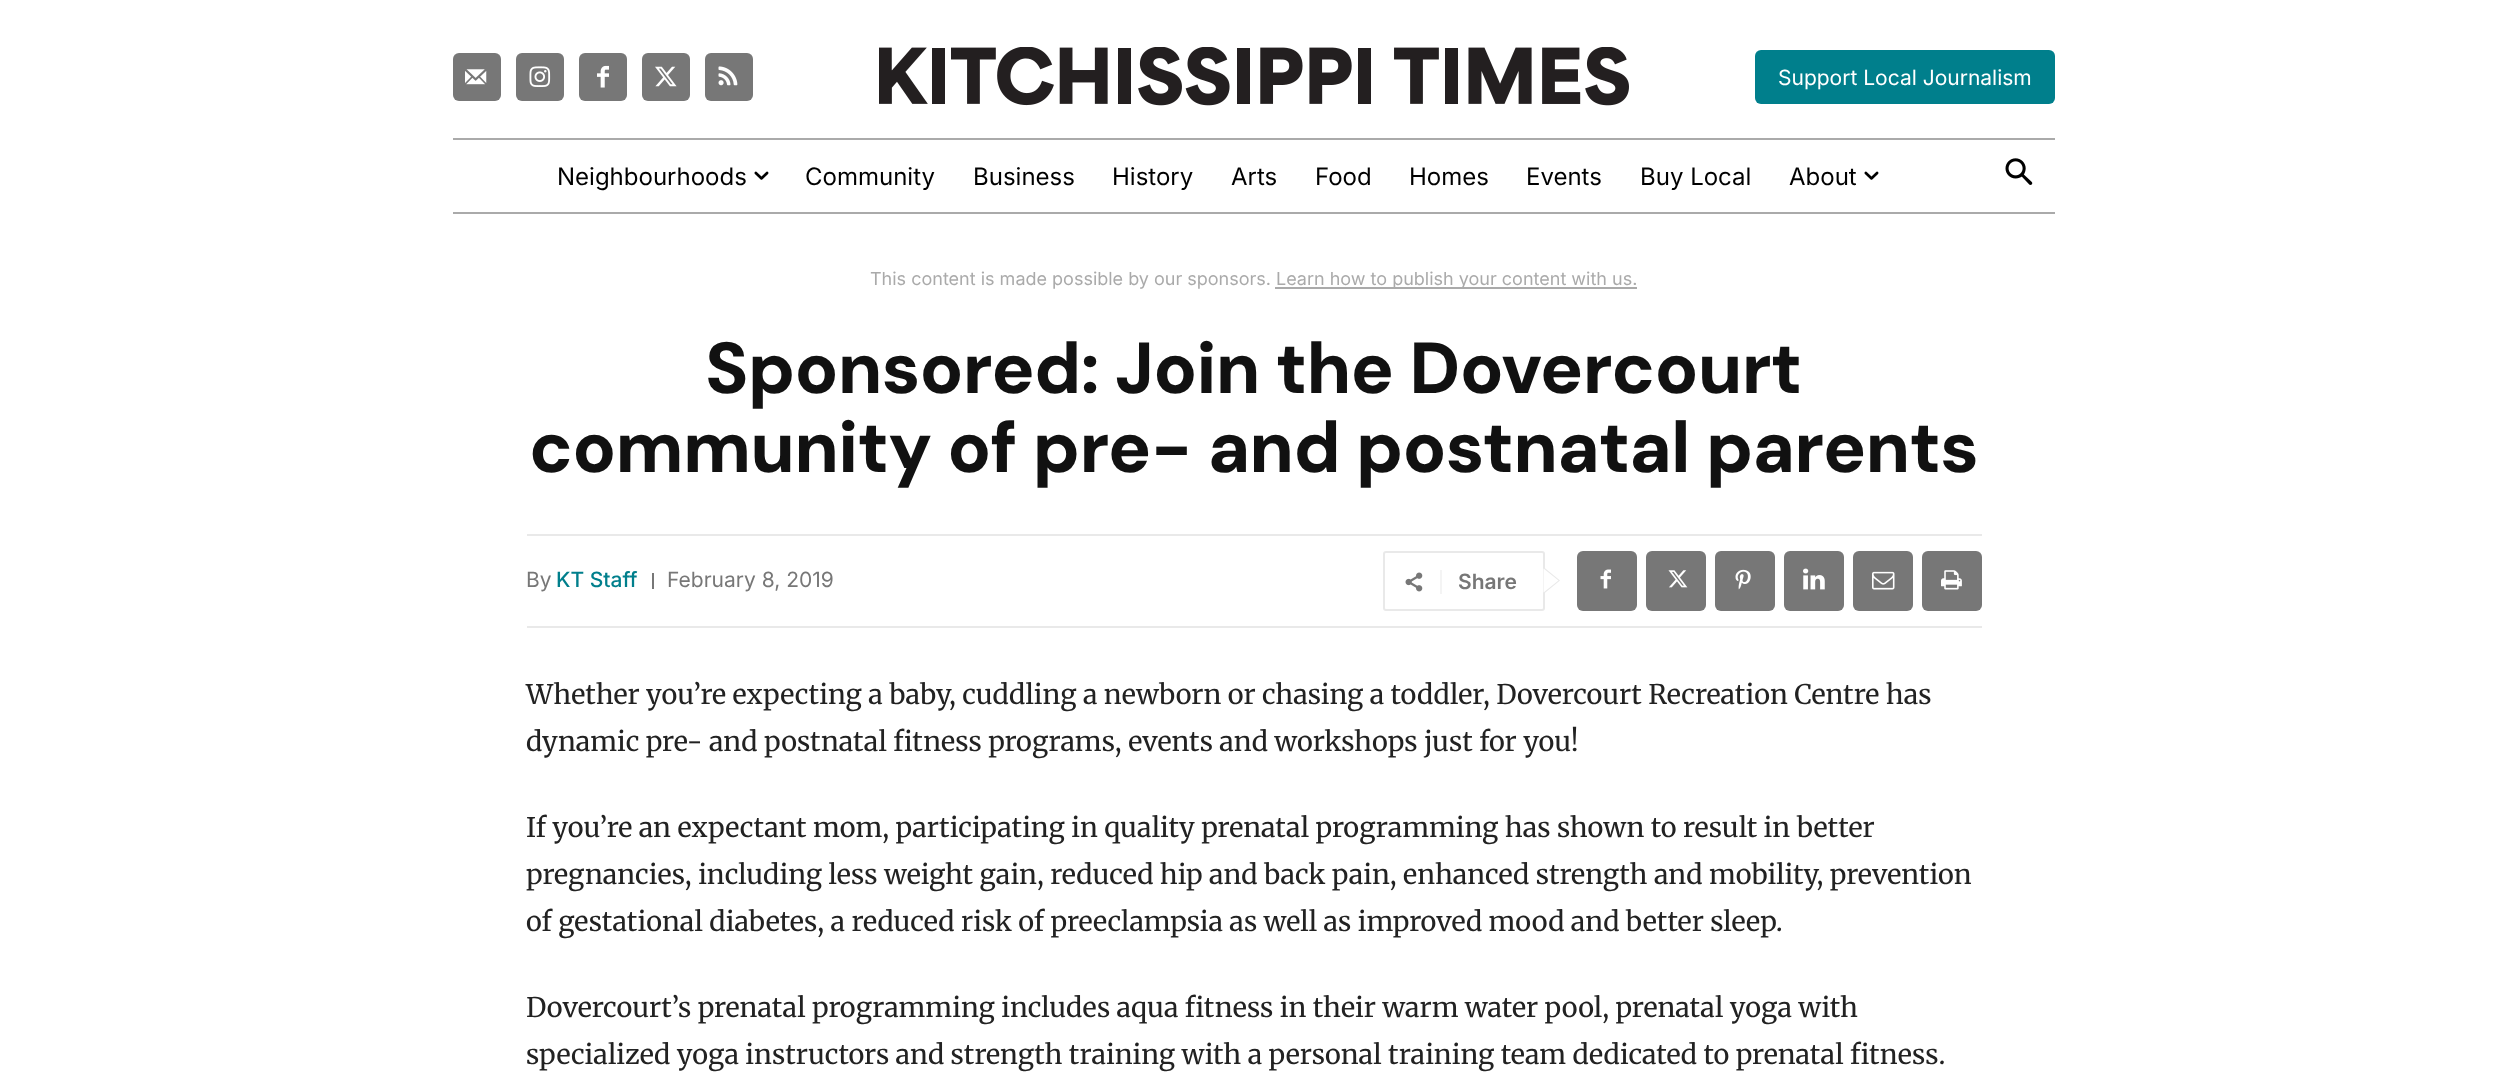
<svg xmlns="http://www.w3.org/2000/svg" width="2506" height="1077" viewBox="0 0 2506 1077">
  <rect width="100%" height="100%" fill="rgb(255,255,255)"/>
  <rect x="453" y="53" width="48" height="48" rx="6" fill="rgb(119,119,119)"/>
  <image x="465" y="69" width="22" height="16" href="pic1.png"/>
  <rect x="516" y="53" width="48" height="48" rx="6" fill="rgb(119,119,119)"/>
  <image x="529" y="66" width="22" height="21" href="pic2.png"/>
  <rect x="579" y="53" width="48" height="48" rx="6" fill="rgb(119,119,119)"/>
  <image x="597" y="65" width="12" height="23" href="pic3.png"/>
  <rect x="642" y="53" width="48" height="48" rx="6" fill="rgb(119,119,119)"/>
  <image x="655" y="66" width="22" height="21" href="pic4.png"/>
  <rect x="705" y="53" width="48" height="48" rx="6" fill="rgb(119,119,119)"/>
  <image x="718" y="66" width="20" height="20" href="pic5.png"/>
  <image x="879" y="47" width="750" height="59" href="pic6.png"/>
  <rect x="1755" y="50" width="300" height="54" rx="6" fill="rgb(0,127,140)"/>
  <text x="1778" y="85" font-family="Inter" font-size="21" fill="rgb(255,255,255)">Support Local Journalism</text>
  <rect x="453" y="138" width="1602" height="2" fill="rgb(170,170,170)"/>
  <rect x="453" y="212" width="1602" height="2" fill="rgb(170,170,170)"/>
  <text x="557" y="185" font-family="Inter" font-size="24" fill="rgb(0,0,0)">Neighbourhoods</text>
  <image x="754" y="171" width="15" height="9" href="pic7.png"/>
  <g font-family="Inter" font-size="24" fill="rgb(0,0,0)">
    <text x="805" y="185">Community</text>
    <text x="973" y="185">Business</text>
    <text x="1112" y="185">History</text>
    <text x="1231" y="185">Arts</text>
    <text x="1315" y="185">Food</text>
    <text x="1409" y="185">Homes</text>
    <text x="1526" y="185">Events</text>
    <text x="1640" y="185">Buy Local</text>
    <text x="1789" y="185">About</text>
  </g>
  <image x="1864" y="171" width="15" height="9" href="pic7.png"/>
  <image x="2005" y="158" width="28" height="27" href="pic8.png"/>
  <text x="870" y="285" font-family="Inter" font-size="18" fill="rgb(170,170,170)">This content is made possible by our sponsors.</text>
  <rect x="1275" y="287" width="362" height="2" fill="rgb(170,170,170)"/>
  <text x="1276" y="285" font-family="Inter" font-size="18" fill="rgb(170,170,170)">Learn how to publish your content with us.</text>
  <g font-family="DM Sans" font-size="72" font-weight="800" letter-spacing="-0.75" fill="rgb(17,17,17)">
    <text x="705" y="393">Sponsored: Join the Dovercourt</text>
    <text x="529" y="472">community of pre- and postnatal parents</text>
  </g>
  <rect x="527" y="534" width="1455" height="2" fill="rgb(233,233,233)"/>
  <rect x="527" y="626" width="1455" height="2" fill="rgb(233,233,233)"/>
  <text x="526" y="587" font-family="Inter" font-size="21" fill="rgb(119,119,119)">By</text>
  <text x="556" y="587" font-family="Inter" font-size="21" font-weight="500" fill="rgb(0,127,140)">KT Staff</text>
  <rect x="652" y="573" width="2" height="16" fill="rgb(119,119,119)"/>
  <text x="667" y="587" font-family="Inter" font-size="21" fill="rgb(119,119,119)">February 8, 2019</text>
  <rect x="1384" y="552" width="160" height="58" rx="2" fill="none" stroke="rgb(233,233,233)" stroke-width="2"/>
  <path d="M1543.5 594V567L1560 580.5Z" fill="rgb(233,233,233)"/>
  <image x="1405" y="572" width="18" height="20" href="pic9.png"/>
  <rect x="1440" y="570" width="2" height="24" fill="rgb(244,244,244)"/>
  <text x="1458" y="589" font-family="Inter" font-size="21" font-weight="600" fill="rgb(119,119,119)">Share</text>
  <path d="M1543.5 592.5V568.5L1558.5 580.5Z" fill="rgb(255,255,255)"/>
  <rect x="1577" y="551" width="60" height="60" rx="6" fill="rgb(119,119,119)"/>
  <image x="1600" y="569" width="11" height="20" href="pic10.png"/>
  <rect x="1646" y="551" width="60" height="60" rx="6" fill="rgb(119,119,119)"/>
  <image x="1668" y="570" width="20" height="18" href="pic11.png"/>
  <rect x="1715" y="551" width="60" height="60" rx="6" fill="rgb(119,119,119)"/>
  <image x="1735" y="569" width="16" height="21" href="pic12.png"/>
  <rect x="1784" y="551" width="60" height="60" rx="6" fill="rgb(119,119,119)"/>
  <image x="1803" y="568" width="22" height="22" href="pic13.png"/>
  <rect x="1853" y="551" width="60" height="60" rx="6" fill="rgb(119,119,119)"/>
  <image x="1872" y="571" width="23" height="19" href="pic14.png"/>
  <rect x="1922" y="551" width="60" height="60" rx="6" fill="rgb(119,119,119)"/>
  <image x="1941" y="570" width="21" height="20" href="pic15.png"/>
  <g font-family="Merriweather" font-size="27" fill="rgb(34,34,34)">
    <text>
      <tspan x="526" y="704">Whether you’re expecting a baby, cuddling a newborn or chasing a toddler, Dovercourt Recreation Centre has</tspan>
      <tspan x="526" y="751">dynamic pre- and postnatal fitness programs, events and workshops just for you!</tspan>
    </text>
    <text>
      <tspan x="526" y="837">If you’re an expectant mom, participating in quality prenatal programming has shown to result in better</tspan>
      <tspan x="526" y="884">pregnancies, including less weight gain, reduced hip and back pain, enhanced strength and mobility, prevention</tspan>
      <tspan x="526" y="931">of gestational diabetes, a reduced risk of preeclampsia as well as improved mood and better sleep.</tspan>
    </text>
    <text>
      <tspan x="526" y="1017">Dovercourt’s prenatal programming includes aqua fitness in their warm water pool, prenatal yoga with</tspan>
      <tspan x="526" y="1064">specialized yoga instructors and strength training with a personal training team dedicated to prenatal fitness.</tspan>
    </text>
  </g>
</svg>
